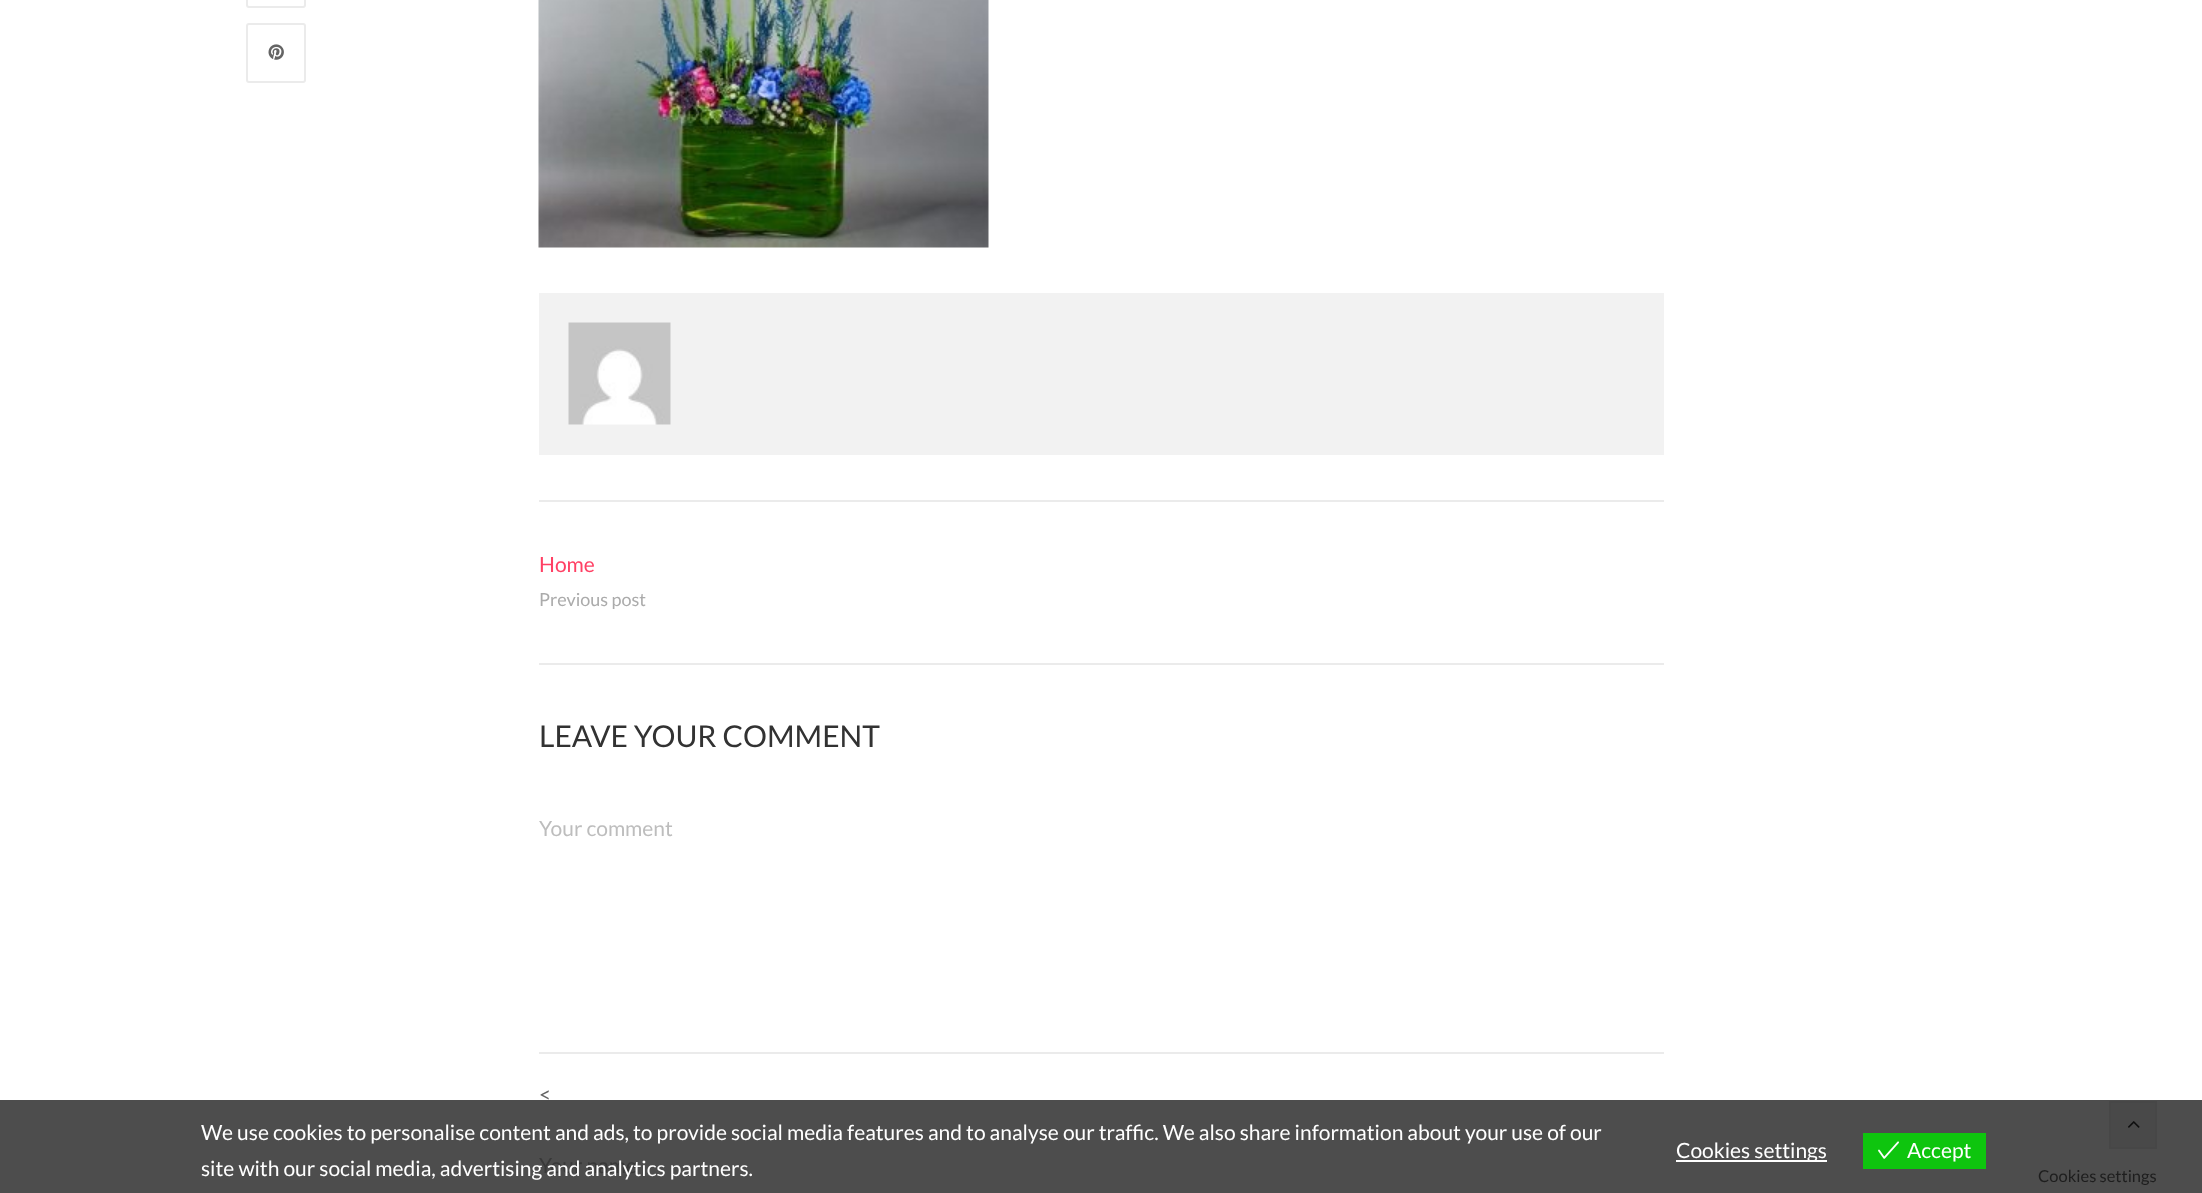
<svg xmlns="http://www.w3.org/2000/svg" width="2202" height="1193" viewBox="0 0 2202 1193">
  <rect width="100%" height="100%" fill="rgb(255,255,255)"/>
  <rect x="0" y="1100" width="2202" height="93" fill="rgb(77,77,77)"/>
  <rect x="247" y="-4" width="58" height="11" rx="2" fill="none" stroke="rgb(235,235,235)" stroke-width="2"/>
  <rect x="247" y="24" width="58" height="58" rx="2" fill="none" stroke="rgb(235,235,235)" stroke-width="2"/>
  <image x="268" y="44" width="16" height="16" href="pic1.png"/>
  <image x="538" y="0" width="451" height="248" href="pic2.png"/>
  <rect x="539" y="293" width="1125" height="162" fill="rgb(242,242,242)"/>
  <image x="568" y="322" width="103" height="103" href="pic3.png"/>
  <rect x="539" y="500" width="1125" height="2" fill="rgb(235,235,235)"/>
  <text x="539" y="572" font-family="Lato" font-size="21" fill="rgb(255,64,100)">Home</text>
  <text x="539" y="606" font-family="Lato" font-size="18" fill="rgb(171,171,171)">Previous post</text>
  <rect x="539" y="663" width="1125" height="2" fill="rgb(235,235,235)"/>
  <text x="539" y="747" font-family="Lato" font-size="30" fill="rgb(50,50,50)">LEAVE YOUR COMMENT</text>
  <rect x="539" y="1052" width="1125" height="2" fill="rgb(235,235,235)"/>
  <text x="539" y="836" font-family="Lato" font-size="21" fill="rgb(189,189,189)">Your comment</text>
  <text x="539" y="1102" font-family="Lato" font-size="21" fill="rgb(100,100,100)">&lt;</text>
  <text x="539" y="1173" font-family="Lato" font-size="21" fill="rgb(57,57,57)">Your name</text>
  <rect x="2110" y="1102" width="46" height="46" fill="rgb(73,73,73)" stroke="rgb(71,71,71)" stroke-width="2"/>
  <image x="2128" y="1121" width="12" height="7" href="pic4.png"/>
  <g font-family="Lato" font-size="21" fill="rgb(255,255,255)">
    <text>
      <tspan x="201" y="1140">We use cookies to personalise content and ads, to provide social media features and to analyse our traffic. We also share information about your use of our</tspan>
      <tspan x="201" y="1176">site with our social media, advertising and analytics partners.</tspan>
    </text>
  </g>
  <rect x="1676" y="1160" width="151" height="2" fill="rgb(255,255,255)"/>
  <text x="1676" y="1158" font-family="Lato" font-size="21" fill="rgb(255,255,255)">Cookies settings</text>
  <rect x="1863" y="1133" width="123" height="36" fill="rgb(14,197,14)"/>
  <image x="1878" y="1141" width="21" height="18" href="pic5.png"/>
  <text x="1907" y="1158" font-family="Lato" font-size="21" fill="rgb(255,255,255)">Accept</text>
  <text x="2038" y="1182" font-family="Lato" font-size="16.5" fill="rgb(30,30,30)">Cookies settings</text>
</svg>
